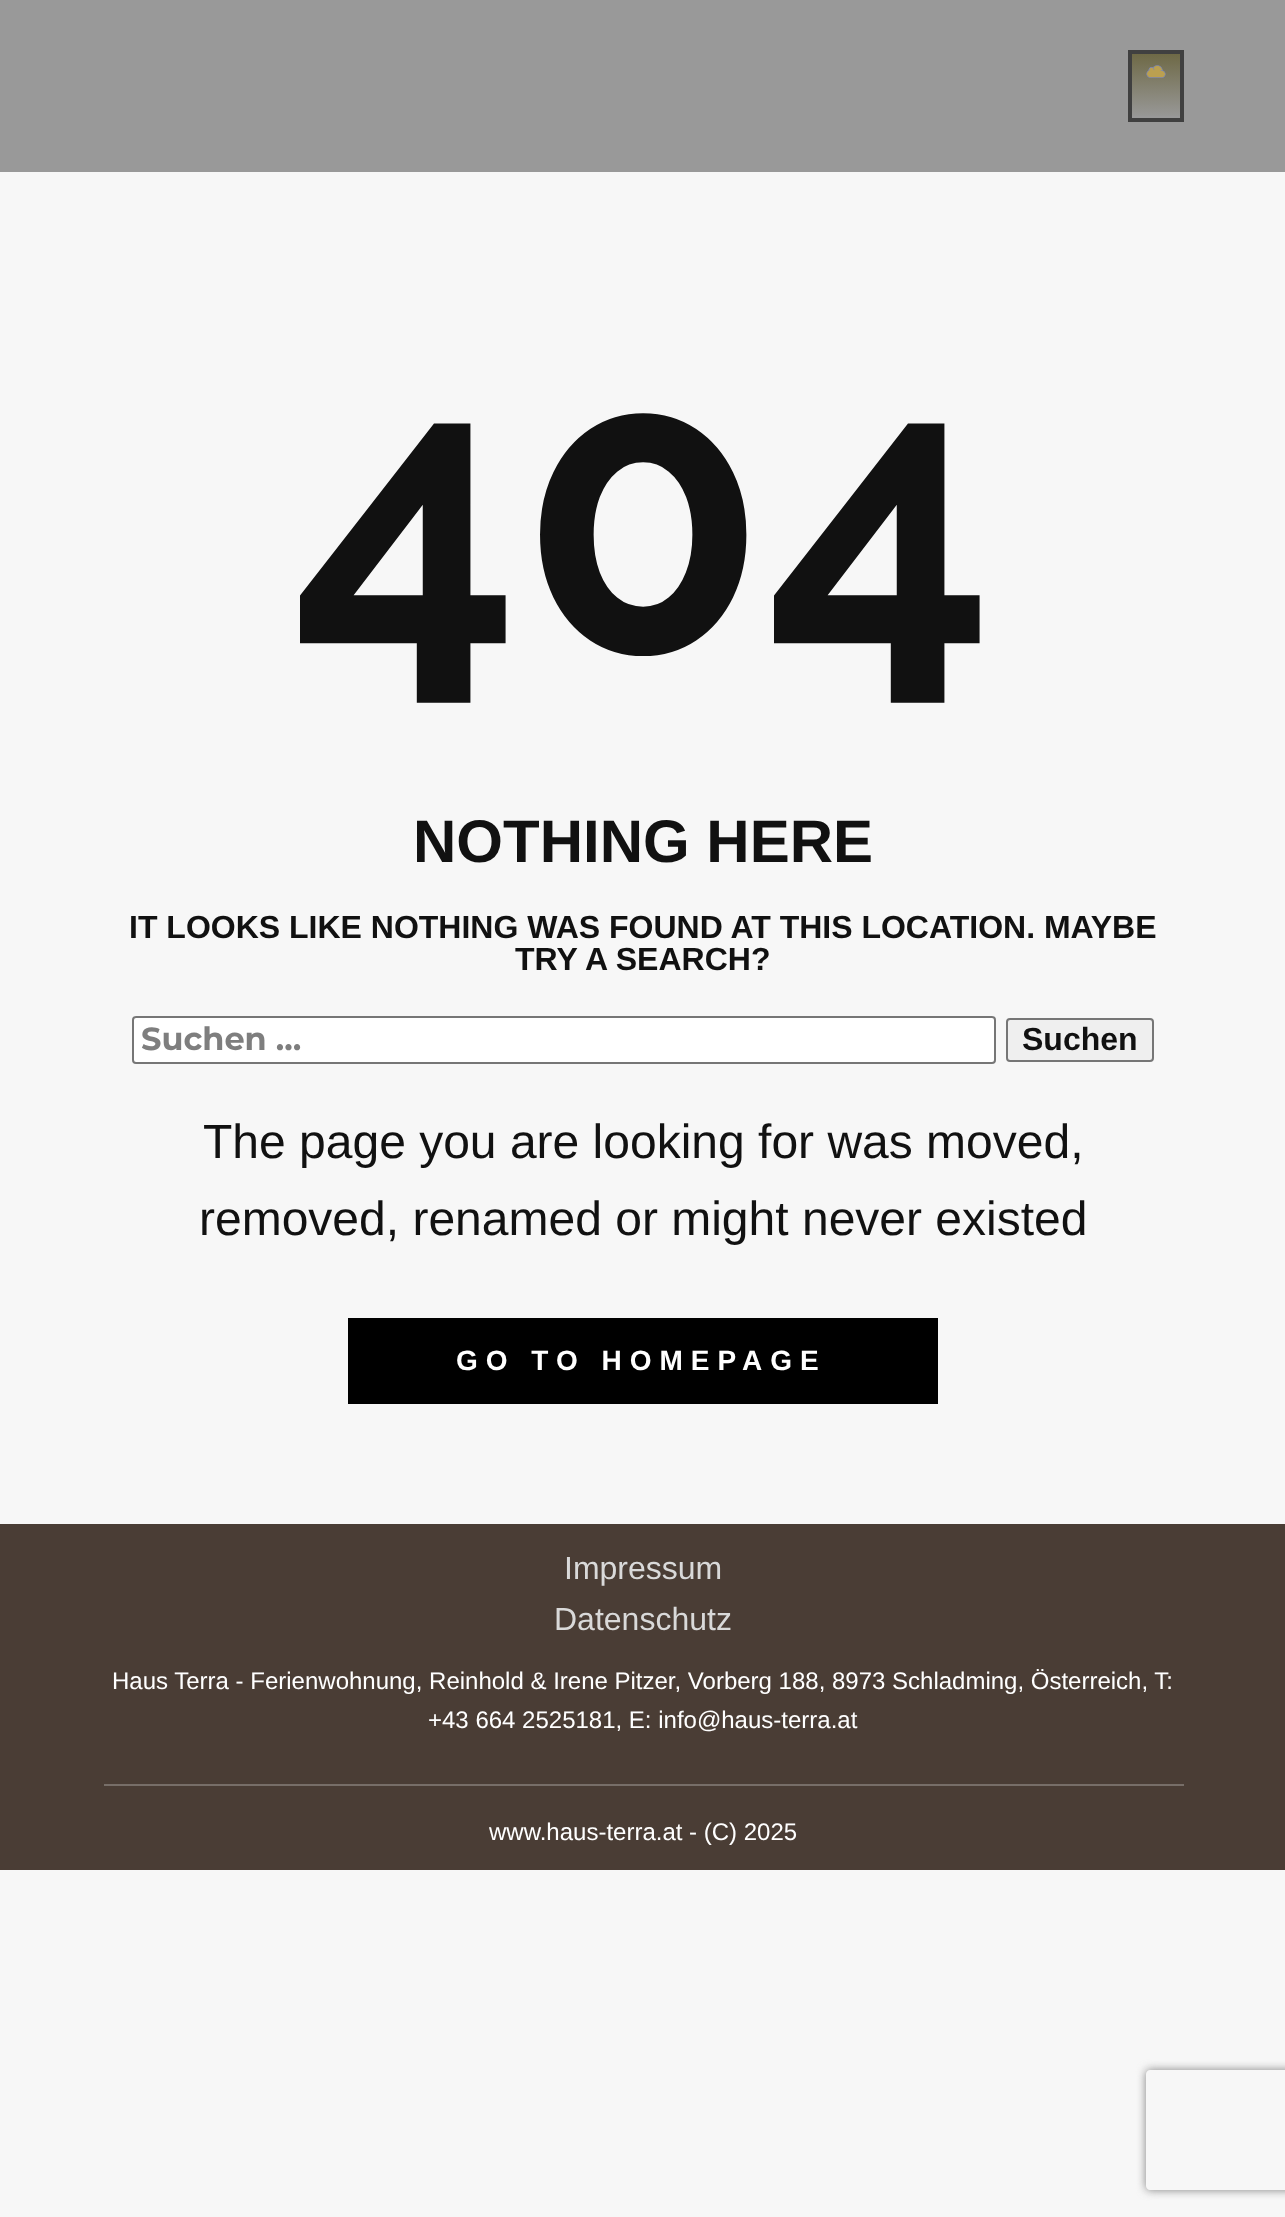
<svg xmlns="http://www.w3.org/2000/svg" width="1285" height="2217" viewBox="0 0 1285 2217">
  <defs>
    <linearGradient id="g1" gradientUnits="userSpaceOnUse" x1="1156" y1="54" x2="1156" y2="118"><stop offset="0" stop-color="rgb(110,105,70)"/><stop offset="1" stop-color="rgb(153,153,153)"/></linearGradient>
    <clipPath id="clip1"><path d="M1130 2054H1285V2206H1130ZM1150 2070H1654C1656 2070 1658 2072 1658 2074V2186C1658 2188 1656 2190 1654 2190H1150C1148 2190 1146 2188 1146 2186V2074C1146 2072 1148 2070 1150 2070Z" clip-rule="evenodd"/></clipPath>
  </defs>
  <rect width="100%" height="100%" fill="rgb(247,247,247)"/>
  <rect x="0" y="0" width="1285" height="172" fill="rgb(153,153,153)"/>
  <rect x="1132" y="54" width="48" height="62" fill="url(#g1)"/>
  <rect x="1130" y="52" width="52" height="68" fill="none" stroke="rgb(64,64,64)" stroke-width="4"/>
  <image x="1146" y="65" width="20" height="13" href="pic1.png"/>
  <text x="292" y="652" font-family="Raleway" font-size="400" font-weight="bold" fill="rgb(17,17,17)">404</text>
  <text x="413" y="862" font-family="Liberation Sans" font-size="60" font-weight="bold" fill="rgb(17,17,17)">NOTHING HERE</text>
  <g font-family="Liberation Sans" font-size="32" font-weight="bold" fill="rgb(17,17,17)">
    <text x="129" y="938">IT LOOKS LIKE NOTHING WAS FOUND AT THIS LOCATION. MAYBE</text>
    <text x="515" y="970">TRY A SEARCH?</text>
  </g>
  <rect x="133" y="1017" width="862" height="46" rx="3" fill="rgb(255,255,255)" stroke="rgb(118,118,118)" stroke-width="2"/>
  <text x="141" y="1050" font-family="Montserrat" font-size="32" font-weight="bold" fill="rgb(126,126,126)">Suchen …</text>
  <rect x="1007" y="1019" width="146" height="42" rx="3" fill="rgb(239,239,239)" stroke="rgb(118,118,118)" stroke-width="2"/>
  <text x="1022" y="1050" font-family="Liberation Sans" font-size="32" font-weight="bold" fill="rgb(17,17,17)">Suchen</text>
  <g font-family="Liberation Sans" font-size="48" fill="rgb(17,17,17)">
    <text x="203" y="1158">The page you are looking for was moved,</text>
    <text x="199" y="1235">removed, renamed or might never existed</text>
  </g>
  <rect x="348" y="1318" width="590" height="86" fill="rgb(0,0,0)"/>
  <text x="456" y="1370" font-family="Liberation Sans" font-size="28" font-weight="bold" letter-spacing="8" fill="rgb(255,255,255)">GO TO HOMEPAGE</text>
  <rect x="0" y="1524" width="1285" height="346" fill="rgb(74,61,53)"/>
  <g font-family="Liberation Sans" font-size="32" fill="rgb(217,217,217)">
    <text x="564" y="1579">Impressum</text>
    <text x="554" y="1630">Datenschutz</text>
  </g>
  <g font-family="Liberation Sans" font-size="24" fill="rgb(255,255,255)">
    <text x="112" y="1689">Haus Terra - Ferienwohnung, Reinhold &amp; Irene Pitzer, Vorberg 188, 8973 Schladming, Österreich, T:</text>
    <text x="428" y="1728">+43 664 2525181, E: info@haus-terra.at</text>
  </g>
  <rect x="104" y="1784" width="1080" height="2" fill="rgb(119,110,104)"/>
  <text x="489" y="1840" font-family="Liberation Sans" font-size="24" fill="rgb(255,255,255)">www.haus-terra.at - (C) 2025</text>
  <g clip-path="url(#clip1)">
    <rect x="1146" y="2070" width="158" height="120" rx="4" fill="rgb(128,128,128)" filter="blur(5px)"/>
  </g>
</svg>
